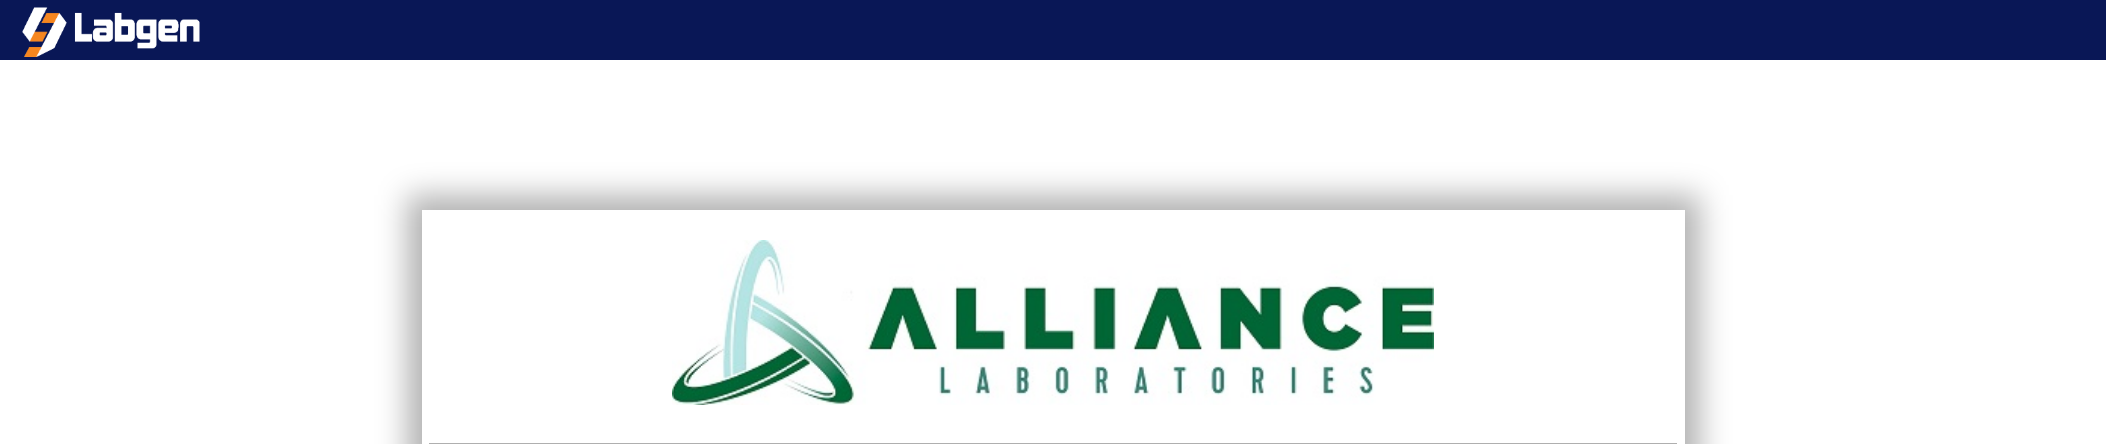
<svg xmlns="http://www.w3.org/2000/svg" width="2106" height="444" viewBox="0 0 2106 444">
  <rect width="100%" height="100%" fill="rgb(9,23,86)"/>
  <image x="22" y="7" width="178" height="50" href="pic1.png"/>
  <rect x="0" y="60" width="2106" height="384" fill="rgb(255,255,255)"/>
  <rect x="407" y="195" width="1293" height="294" fill="rgba(0,0,0,0.3)" filter="blur(15px)"/>
  <rect x="422" y="210" width="1263" height="234" fill="rgb(255,255,255)"/>
  <image x="672" y="240" width="762" height="165" href="pic2.png"/>
  <rect x="430" y="444" width="1246" height="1" fill="none" stroke="rgb(175,175,175)" stroke-width="2"/>
</svg>
